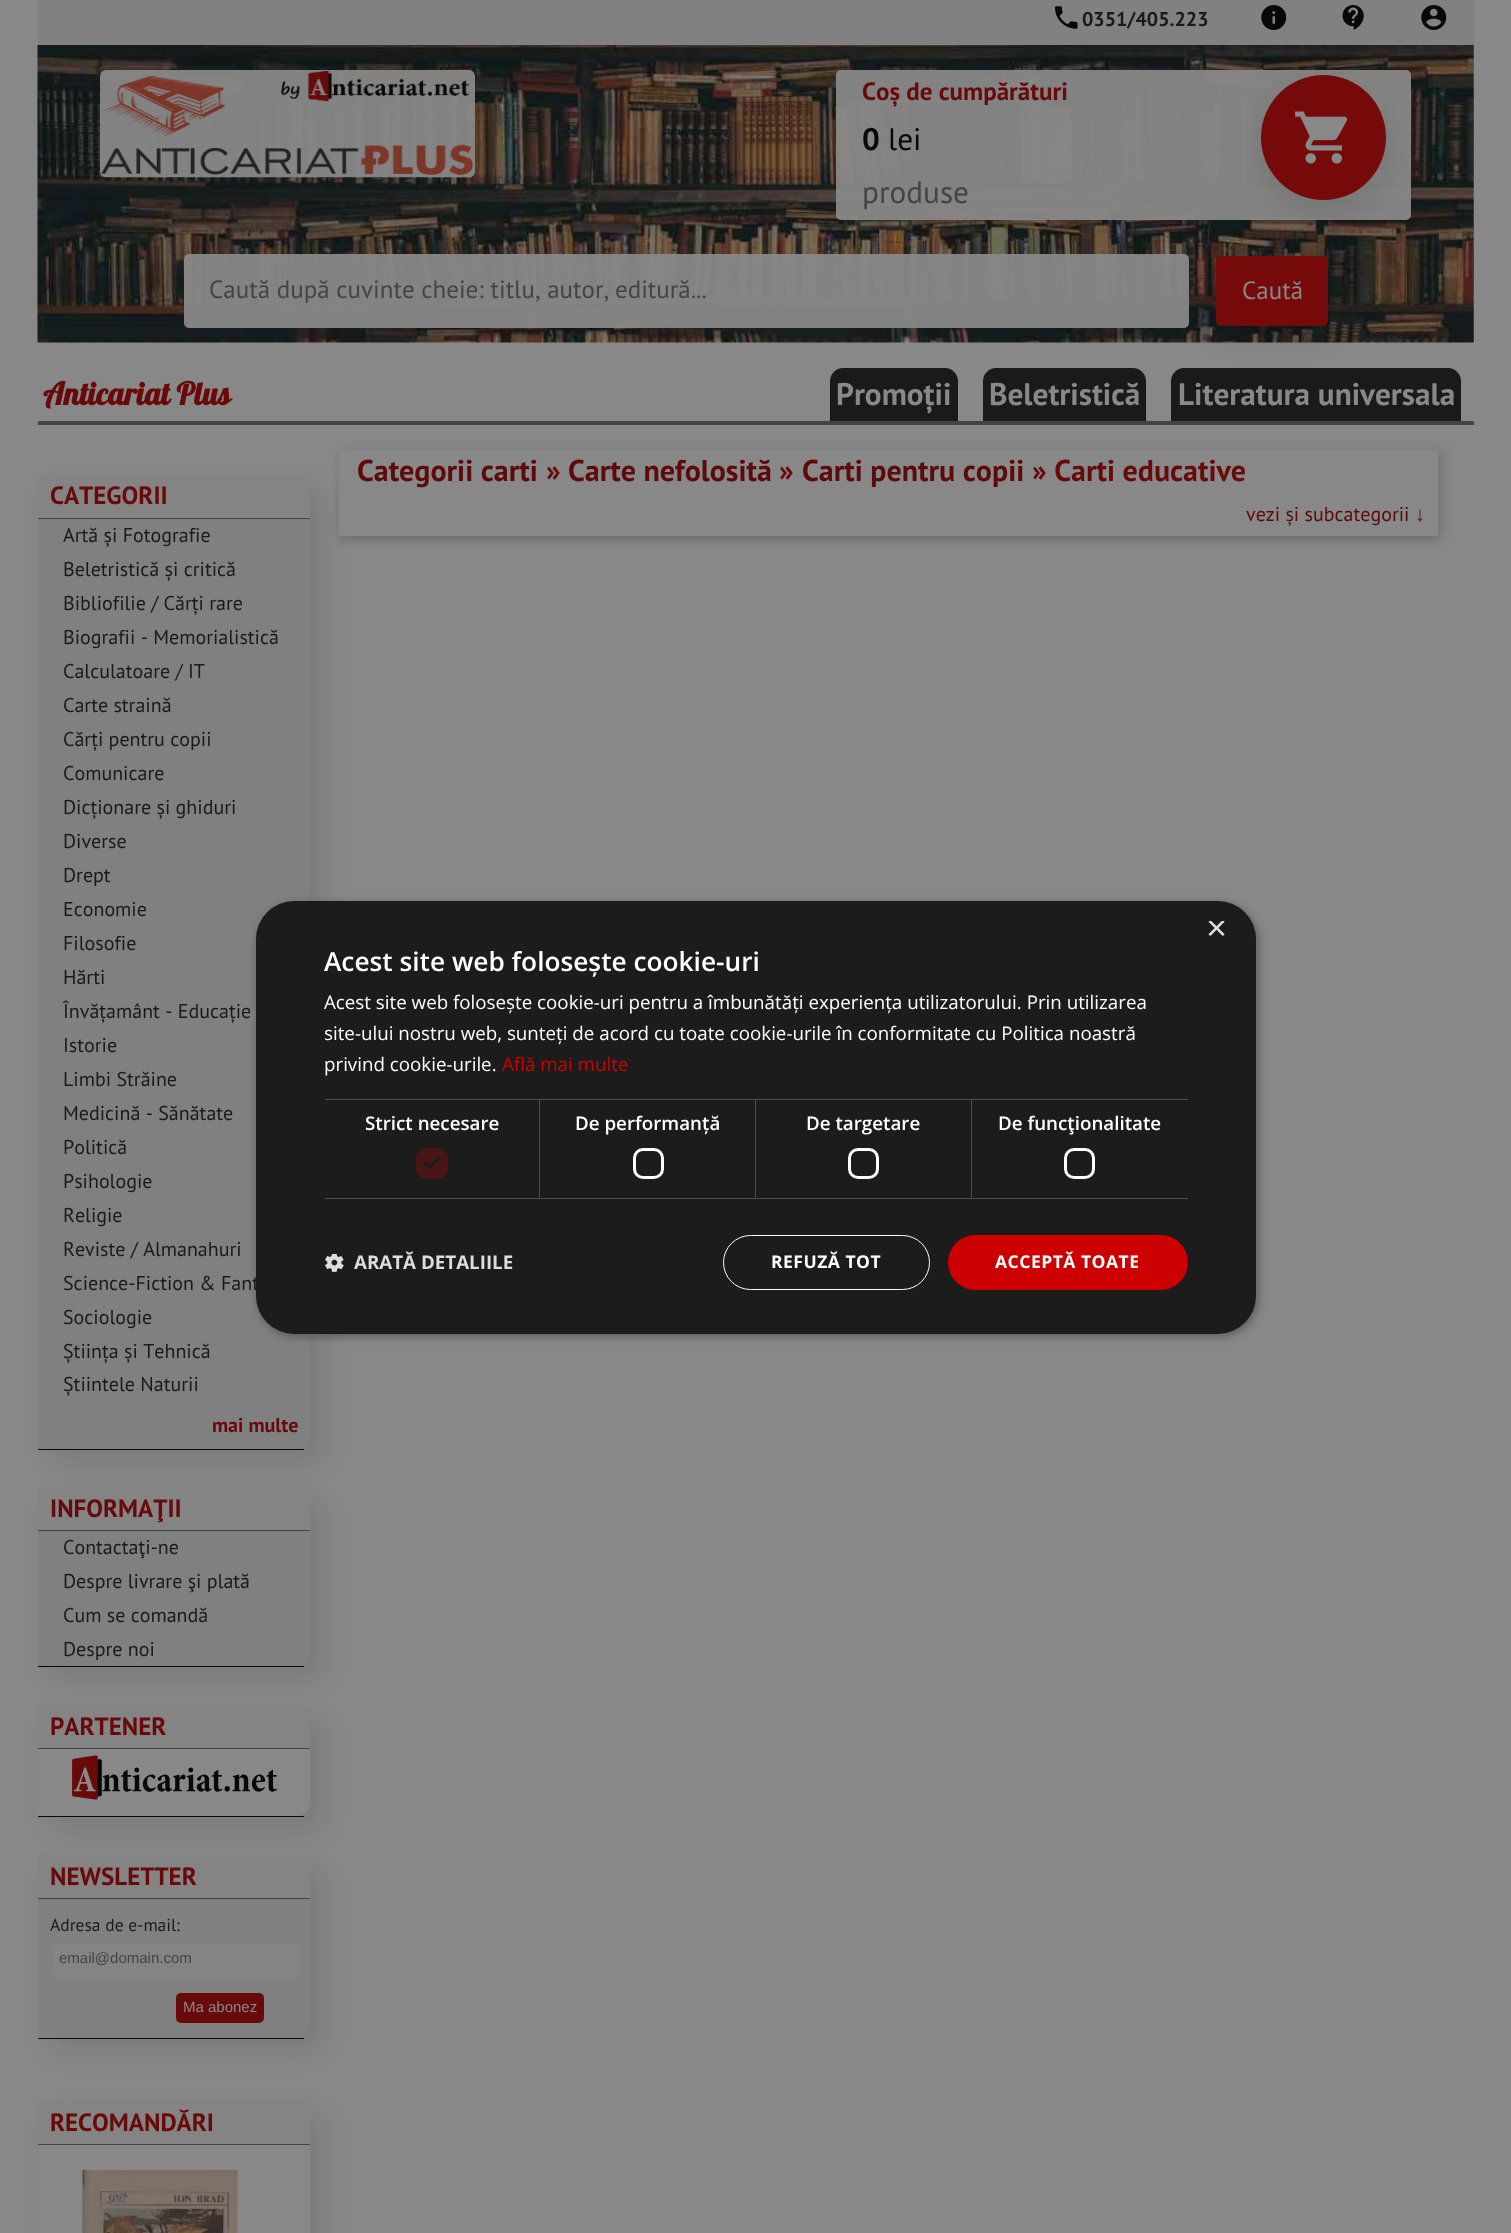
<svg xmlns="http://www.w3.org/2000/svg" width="1511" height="2233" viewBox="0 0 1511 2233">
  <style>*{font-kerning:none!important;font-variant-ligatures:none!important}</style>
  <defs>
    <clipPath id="clip1"><rect x="1206" y="921" width="19" height="19"/></clipPath>
  </defs>
  <rect width="100%" height="100%" fill="rgb(136,136,136)"/>
  <rect x="38" y="0" width="1436" height="45" fill="rgb(129,129,129)"/>
  <image x="1055" y="6" width="23" height="23" href="pic1.png"/>
  <text x="1082" y="26" font-family="PT Sans" font-size="20" font-weight="bold" fill="rgb(26,26,26)">0351/405.223</text>
  <image x="1261" y="5" width="26" height="25" href="pic2.png"/>
  <image x="1342" y="5" width="22" height="25" href="pic3.png"/>
  <image x="1421" y="5" width="26" height="25" href="pic4.png"/>
  <image x="37" y="45" width="1437" height="298" href="pic5.png"/>
  <image x="100" y="70" width="375" height="108" href="pic6.png"/>
  <rect x="836" y="70" width="575" height="150" rx="5" fill="rgba(136,136,136,0.95)"/>
  <text x="862" y="100" font-family="PT Sans" font-size="25" font-weight="bold" fill="rgb(105,10,10)">Coș de cumpărături</text>
  <rect x="1261" y="88" width="125" height="125" rx="62.5" fill="rgba(9,9,9,0.1)" filter="blur(12.5px)"/>
  <circle cx="1323.5" cy="137.5" r="62.5" fill="rgb(118,10,10)"/>
  <image x="1295" y="111" width="53" height="53" href="pic7.png"/>
  <text x="862" y="150" font-family="PT Sans" font-size="31.25" font-weight="bold" fill="rgb(9,9,9)">0</text>
  <text x="888" y="150" font-family="PT Sans" font-size="31.25" fill="rgb(9,9,9)">lei</text>
  <text x="862" y="203" font-family="PT Sans" font-size="31.25" fill="rgb(68,68,68)">produse</text>
  <rect x="184" y="254" width="1005" height="74" rx="5" fill="rgba(136,136,136,0.95)"/>
  <text x="209" y="298" font-family="PT Sans" font-size="25" fill="rgb(68,68,68)">Caută după cuvinte cheie: titlu, autor,</text>
  <text x="615" y="298" font-family="PT Sans" font-size="25" fill="rgb(68,68,68)">editură...</text>
  <path d="M1184 368H1448C1455 368 1461 374 1461 381V421H1171V381C1171 374 1177 368 1184 368Z" fill="rgb(26,26,26)"/>
  <rect x="1216" y="269" width="112" height="70" rx="5" fill="rgba(9,9,9,0.1)" filter="blur(12.5px)"/>
  <rect x="1216" y="256" width="112" height="70" rx="5" fill="rgb(118,10,10)"/>
  <text x="1242" y="299" font-family="PT Sans" font-size="25" fill="rgb(136,136,136)">Caută</text>
  <rect x="38" y="421" width="1436" height="4" fill="rgb(68,68,68)"/>
  <text x="43" y="405" font-family="Lobster" font-size="31.25" font-weight="bold" fill="rgb(105,10,10)">Anticariat Plus</text>
  <path d="M843 368H945C952 368 958 374 958 381V421H830V381C830 374 836 368 843 368Z" fill="rgb(26,26,26)"/>
  <text x="836" y="405" font-family="PT Sans" font-size="31.25" font-weight="bold" fill="rgb(136,136,136)">Promoții</text>
  <path d="M996 368H1133C1140 368 1146 374 1146 381V421H983V381C983 374 989 368 996 368Z" fill="rgb(26,26,26)"/>
  <g font-family="PT Sans" font-size="31.25" font-weight="bold" fill="rgb(136,136,136)">
    <text x="989" y="405">Beletristică</text>
    <text x="1178" y="405">Literatura universala</text>
  </g>
  <rect x="50" y="488" width="273" height="975" rx="13" fill="rgba(9,9,9,0.1)" filter="blur(12.5px)"/>
  <path d="M38 475H297C304 475 310 481 310 488V1437C310 1444 304 1450 297 1450H38Z" fill="rgb(128,128,128)"/>
  <rect x="38" y="1449" width="266" height="1" fill="rgb(9,9,9)"/>
  <path d="M38 475H297C304 475 310 481 310 488V519H38Z" fill="rgb(132,132,132)"/>
  <rect x="38" y="518" width="272" height="1" fill="rgb(68,68,68)"/>
  <text x="50" y="504" font-family="PT Sans" font-size="25" font-weight="bold" fill="rgb(105,10,10)">CATEGORII</text>
  <g font-family="PT Sans" font-size="20" fill="rgb(26,26,26)">
    <text>
      <tspan x="63" y="542">Artă și Fotografie</tspan>
      <tspan x="63" y="576">Beletristică și critică</tspan>
      <tspan x="63" y="610">Bibliofilie / Cărți rare</tspan>
      <tspan x="63" y="644">Biografii - Memorialistică</tspan>
      <tspan x="63" y="678">Calculatoare / IT</tspan>
      <tspan x="63" y="712">Carte straină</tspan>
      <tspan x="63" y="746">Cărți pentru copii</tspan>
      <tspan x="63" y="780">Comunicare</tspan>
      <tspan x="63" y="814">Dicționare și ghiduri</tspan>
      <tspan x="63" y="848">Diverse</tspan>
      <tspan x="63" y="882">Drept</tspan>
      <tspan x="63" y="916">Economie</tspan>
      <tspan x="63" y="950">Filosofie</tspan>
      <tspan x="63" y="984">Hărti</tspan>
      <tspan x="63" y="1018">Învățamânt - Educație</tspan>
      <tspan x="63" y="1052">Istorie</tspan>
      <tspan x="63" y="1086">Limbi Străine</tspan>
      <tspan x="63" y="1120">Medicină - Sănătate</tspan>
      <tspan x="63" y="1154">Politică</tspan>
      <tspan x="63" y="1188">Psihologie</tspan>
      <tspan x="63" y="1222">Religie</tspan>
      <tspan x="63" y="1256">Reviste / Almanahuri</tspan>
      <tspan x="63" y="1290">Science-Fiction &amp; Fant</tspan>
      <tspan x="63" y="1324">Sociologie</tspan>
      <tspan x="63" y="1358">Știința și Tehnică</tspan>
      <tspan x="63" y="1391">Știintele Naturii</tspan>
    </text>
  </g>
  <text x="212" y="1432" font-family="PT Sans" font-size="20" font-weight="bold" fill="rgb(105,10,10)">mai multe</text>
  <rect x="50" y="1500" width="273" height="180" rx="13" fill="rgba(9,9,9,0.1)" filter="blur(12.5px)"/>
  <path d="M38 1488H297C304 1488 310 1494 310 1501V1655C310 1662 304 1668 297 1668H38Z" fill="rgb(128,128,128)"/>
  <rect x="38" y="1666" width="266" height="1" fill="rgb(9,9,9)"/>
  <path d="M38 1488H297C304 1488 310 1494 310 1501V1531H38Z" fill="rgb(132,132,132)"/>
  <rect x="38" y="1530" width="272" height="1" fill="rgb(68,68,68)"/>
  <text x="50" y="1517" font-family="PT Sans" font-size="25" font-weight="bold" fill="rgb(105,10,10)">INFORMAŢII</text>
  <g font-family="PT Sans" font-size="20" fill="rgb(26,26,26)">
    <text>
      <tspan x="63" y="1554">Contactaţi-ne</tspan>
      <tspan x="63" y="1588">Despre livrare şi plată</tspan>
      <tspan x="63" y="1622">Cum se comandă</tspan>
      <tspan x="63" y="1656">Despre noi</tspan>
    </text>
  </g>
  <rect x="50" y="1718" width="273" height="112" rx="13" fill="rgba(9,9,9,0.1)" filter="blur(12.5px)"/>
  <path d="M38 1705H297C304 1705 310 1711 310 1718V1805C310 1812 304 1818 297 1818H38Z" fill="rgb(128,128,128)"/>
  <rect x="38" y="1816" width="266" height="1" fill="rgb(9,9,9)"/>
  <path d="M38 1705H297C304 1705 310 1711 310 1718V1749H38Z" fill="rgb(132,132,132)"/>
  <rect x="38" y="1748" width="272" height="1" fill="rgb(68,68,68)"/>
  <text x="50" y="1735" font-family="PT Sans" font-size="25" font-weight="bold" fill="rgb(105,10,10)">PARTENER</text>
  <path d="M38 1749H310V1803C310 1810 304 1816 297 1816H38Z" fill="rgb(136,136,136)"/>
  <image x="72" y="1755" width="205" height="45" href="pic8.png"/>
  <rect x="50" y="1868" width="273" height="183" rx="13" fill="rgba(9,9,9,0.1)" filter="blur(12.5px)"/>
  <path d="M38 1855H297C304 1855 310 1861 310 1868V2026C310 2033 304 2039 297 2039H38Z" fill="rgb(128,128,128)"/>
  <rect x="38" y="2038" width="266" height="1" fill="rgb(9,9,9)"/>
  <path d="M38 1855H297C304 1855 310 1861 310 1868V1899H38Z" fill="rgb(132,132,132)"/>
  <rect x="38" y="1898" width="272" height="1" fill="rgb(68,68,68)"/>
  <text x="50" y="1885" font-family="PT Sans" font-size="25" font-weight="bold" fill="rgb(105,10,10)">NEWSLETTER</text>
  <text x="50" y="1931" font-family="PT Sans" font-size="17.5" fill="rgb(26,26,26)">Adresa de e-mail:</text>
  <rect x="53" y="1944" width="247" height="34" rx="5" fill="rgba(136,136,136,0.5)"/>
  <text x="59" y="1963" font-family="Liberation Sans" font-size="15" fill="rgb(68,68,68)">email@domain.com</text>
  <rect x="176" y="1993" width="88" height="30" rx="5" fill="rgb(105,10,10)"/>
  <text x="183" y="2012" font-family="Liberation Sans" font-size="15" fill="rgb(136,136,136)">Ma abonez</text>
  <rect x="50" y="2114" width="273" height="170" rx="13" fill="rgba(9,9,9,0.1)" filter="blur(12.5px)"/>
  <path d="M38 2101H297C304 2101 310 2107 310 2114V2145H38Z" fill="rgb(132,132,132)"/>
  <rect x="38" y="2144" width="272" height="1" fill="rgb(68,68,68)"/>
  <text x="50" y="2131" font-family="PT Sans" font-size="25" font-weight="bold" fill="rgb(105,10,10)">RECOMANDĂRI</text>
  <rect x="40" y="2145" width="270" height="88" fill="rgb(136,136,136)"/>
  <image x="82" y="2170" width="156" height="63" href="pic9.png"/>
  <rect x="345" y="450" width="1099" height="86" fill="rgba(9,9,9,0.1)" filter="blur(6px)"/>
  <rect x="339" y="456" width="1099" height="87" fill="rgba(9,9,9,0.1)" filter="blur(3px)"/>
  <rect x="339" y="450" width="1099" height="86" fill="rgb(136,136,136)"/>
  <text x="357" y="481" font-family="PT Sans" font-size="30" font-weight="bold" fill="rgb(93,10,10)">Categorii carti</text>
  <text x="546" y="481" font-family="PT Sans" font-size="30" font-weight="bold" fill="rgb(105,10,10)">»</text>
  <text x="568" y="481" font-family="PT Sans" font-size="30" font-weight="bold" fill="rgb(93,10,10)">Carte nefolosită</text>
  <text x="779" y="481" font-family="PT Sans" font-size="30" font-weight="bold" fill="rgb(105,10,10)">»</text>
  <text x="802" y="481" font-family="PT Sans" font-size="30" font-weight="bold" fill="rgb(93,10,10)">Carti pentru copii</text>
  <text x="1032" y="481" font-family="PT Sans" font-size="30" font-weight="bold" fill="rgb(105,10,10)">» Carti educative</text>
  <text x="1246" y="521" font-family="PT Sans" font-size="20" fill="rgb(93,10,10)">vezi și subcategorii</text>
  <text x="1415" y="521" font-family="Liberation Sans" font-size="20" fill="rgb(93,10,10)">↓</text>
  <rect x="258" y="904" width="1000" height="432" rx="38" fill="rgba(0,0,0,0.35)" filter="blur(5px)"/>
  <rect x="256" y="901" width="1000" height="433" rx="38" fill="rgb(28,28,28)"/>
  <g clip-path="url(#clip1)">
    <text x="1206" y="940" font-family="Liberation Sans" font-size="36" fill="rgb(221,221,221)">×</text>
  </g>
  <text x="324" y="971" font-family="Open Sans" font-size="26.25" font-weight="600" fill="rgb(255,255,255)">Acest site web folosește cookie-uri</text>
  <g font-family="Open Sans" font-size="18.75" fill="rgb(255,255,255)">
    <text>
      <tspan x="324" y="1009">Acest site web folosește cookie-uri pentru a îmbunătăți experiența utilizatorului. Prin utilizarea</tspan>
      <tspan x="324" y="1040">site-ului nostru web, sunteți de acord cu toate cookie-urile în conformitate cu Politica noastră</tspan>
      <tspan x="324" y="1071">privind cookie-urile.</tspan>
    </text>
  </g>
  <text x="502" y="1071" font-family="Open Sans" font-size="18.75" fill="rgb(204,0,0)">Află mai multe</text>
  <rect x="325" y="1099" width="863" height="1" fill="rgb(77,77,77)"/>
  <rect x="539" y="1099" width="1" height="100" fill="rgb(77,77,77)"/>
  <rect x="325" y="1198" width="215" height="1" fill="rgb(77,77,77)"/>
  <text x="365" y="1130" font-family="Open Sans" font-size="18.75" font-weight="600" fill="rgb(255,255,255)">Strict necesare</text>
  <rect x="416" y="1148" width="32" height="31" rx="10" fill="rgb(74,21,21)"/>
  <path d="M425 1163L429 1167.5L439 1158" fill="none" stroke="rgb(28,28,28)" stroke-width="3.3"/>
  <rect x="755" y="1099" width="1" height="100" fill="rgb(77,77,77)"/>
  <rect x="540" y="1198" width="216" height="1" fill="rgb(77,77,77)"/>
  <text x="575" y="1130" font-family="Open Sans" font-size="18.75" font-weight="600" fill="rgb(255,255,255)">De performanță</text>
  <rect x="634.5" y="1149.5" width="28" height="28" rx="8.5" fill="none" stroke="rgb(255,255,255)" stroke-width="3"/>
  <rect x="971" y="1099" width="1" height="100" fill="rgb(77,77,77)"/>
  <rect x="756" y="1198" width="432" height="1" fill="rgb(77,77,77)"/>
  <text x="806" y="1130" font-family="Open Sans" font-size="18.75" font-weight="600" fill="rgb(255,255,255)">De targetare</text>
  <rect x="849.5" y="1149.5" width="28" height="28" rx="8.5" fill="none" stroke="rgb(255,255,255)" stroke-width="3"/>
  <text x="998" y="1130" font-family="Open Sans" font-size="18.75" font-weight="600" fill="rgb(255,255,255)">De funcţionalitate</text>
  <rect x="1065.5" y="1149.5" width="28" height="28" rx="8.5" fill="none" stroke="rgb(255,255,255)" stroke-width="3"/>
  <image x="325" y="1254" width="19" height="18" href="pic10.png"/>
  <text x="354" y="1269" font-family="Open Sans" font-size="18.75" font-weight="bold" fill="rgb(221,221,221)">ARATĂ DETALIILE</text>
  <rect x="723.5" y="1235.5" width="206" height="54" rx="27" fill="none" stroke="rgb(255,255,255)"/>
  <text x="771" y="1268" font-family="Open Sans" font-size="17.5" font-weight="bold" letter-spacing="0.5" fill="rgb(255,255,255)">REFUZĂ TOT</text>
  <rect x="948" y="1235" width="240" height="55" rx="27.5" fill="rgb(204,0,0)"/>
  <text x="995" y="1268" font-family="Open Sans" font-size="17.5" font-weight="bold" letter-spacing="0.5" fill="rgb(255,255,255)">ACCEPTĂ TOATE</text>
</svg>
